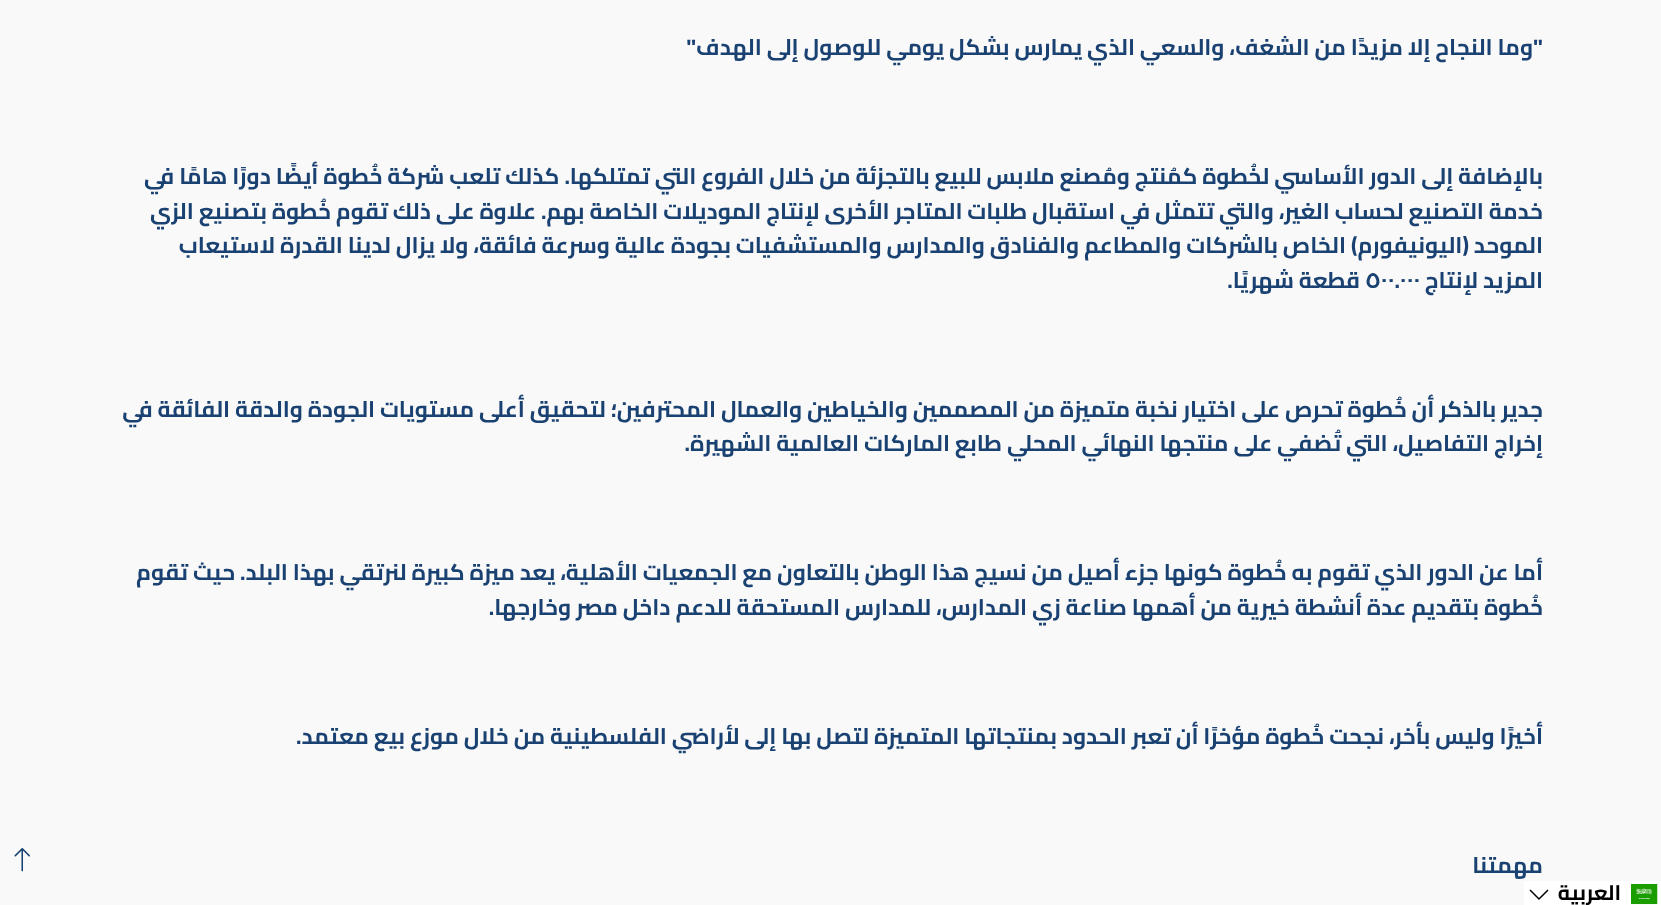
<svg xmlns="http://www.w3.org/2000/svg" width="1661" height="905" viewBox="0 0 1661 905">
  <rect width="100%" height="100%" fill="rgb(249,249,249)"/>
  <g font-family="Cairo" font-size="22.5" font-weight="bold" direction="rtl" fill="rgb(25,65,113)">
    <text x="1543" y="55">"وما النجاح إلا مزيدًا من الشغف، والسعي الذي يمارس بشكل يومي للوصول إلى الهدف"</text>
    <text>
      <tspan x="1543" y="184">بالإضافة إلى الدور الأساسي لخُطوة كمُنتج ومُصنع ملابس للبيع بالتجزئة من خلال الفروع التي تمتلكها. كذلك تلعب شركة خُطوة أيضًا دورًا هامًا في</tspan>
      <tspan x="1543" y="219">خدمة التصنيع لحساب الغير، والتي تتمثل في استقبال طلبات المتاجر الأخرى لإنتاج الموديلات الخاصة بهم. علاوة على ذلك تقوم خُطوة بتصنيع الزي</tspan>
      <tspan x="1543" y="253">الموحد (اليونيفورم) الخاص بالشركات والمطاعم والفنادق والمدارس والمستشفيات بجودة عالية وسرعة فائقة، ولا يزال لدينا القدرة لاستيعاب</tspan>
      <tspan x="1543" y="288">المزيد لإنتاج</tspan>
    </text>
  </g>
  <text x="1365" y="288" font-family="Cairo" font-size="22.5" font-weight="bold" fill="rgb(25,65,113)">٥٠٠.٠٠٠</text>
  <g font-family="Cairo" font-size="22.5" font-weight="bold" direction="rtl" fill="rgb(25,65,113)">
    <text x="1360" y="288">قطعة شهريًا.</text>
    <text>
      <tspan x="1543" y="417">جدير بالذكر أن خُطوة تحرص على اختيار نخبة متميزة من المصممين والخياطين والعمال المحترفين؛ لتحقيق أعلى مستويات الجودة والدقة الفائقة في</tspan>
      <tspan x="1543" y="451">إخراج التفاصيل، التي تُضفي على منتجها النهائي المحلي طابع الماركات العالمية الشهيرة.</tspan>
    </text>
    <text>
      <tspan x="1543" y="580">أما عن الدور الذي تقوم به خُطوة كونها جزء أصيل من نسيج هذا الوطن بالتعاون مع الجمعيات الأهلية، يعد ميزة كبيرة لنرتقي بهذا البلد. حيث تقوم</tspan>
      <tspan x="1543" y="615">خُطوة بتقديم عدة أنشطة خيرية من أهمها صناعة زي المدارس، للمدارس المستحقة للدعم داخل مصر وخارجها.</tspan>
    </text>
    <text x="1543" y="744">أخيرًا وليس بأخر، نجحت خُطوة مؤخرًا أن تعبر الحدود بمنتجاتها المتميزة لتصل بها إلى لأراضي الفلسطينية من خلال موزع بيع معتمد.</text>
    <text x="1543" y="873">مهمتنا</text>
  </g>
  <image x="14" y="848" width="16" height="24" href="pic1.png"/>
  <rect x="1524" y="881" width="137" height="24" fill="rgb(255,255,255)"/>
  <image x="1631" y="884" width="27" height="21" href="pic2.png"/>
  <text x="1621" y="900" font-family="Cairo" font-size="21" font-weight="bold" direction="rtl" fill="rgb(0,0,0)">العربية</text>
  <path d="M1530 890L1539 899L1548 890" fill="none" stroke="rgb(0,0,0)" stroke-width="1.5"/>
</svg>
